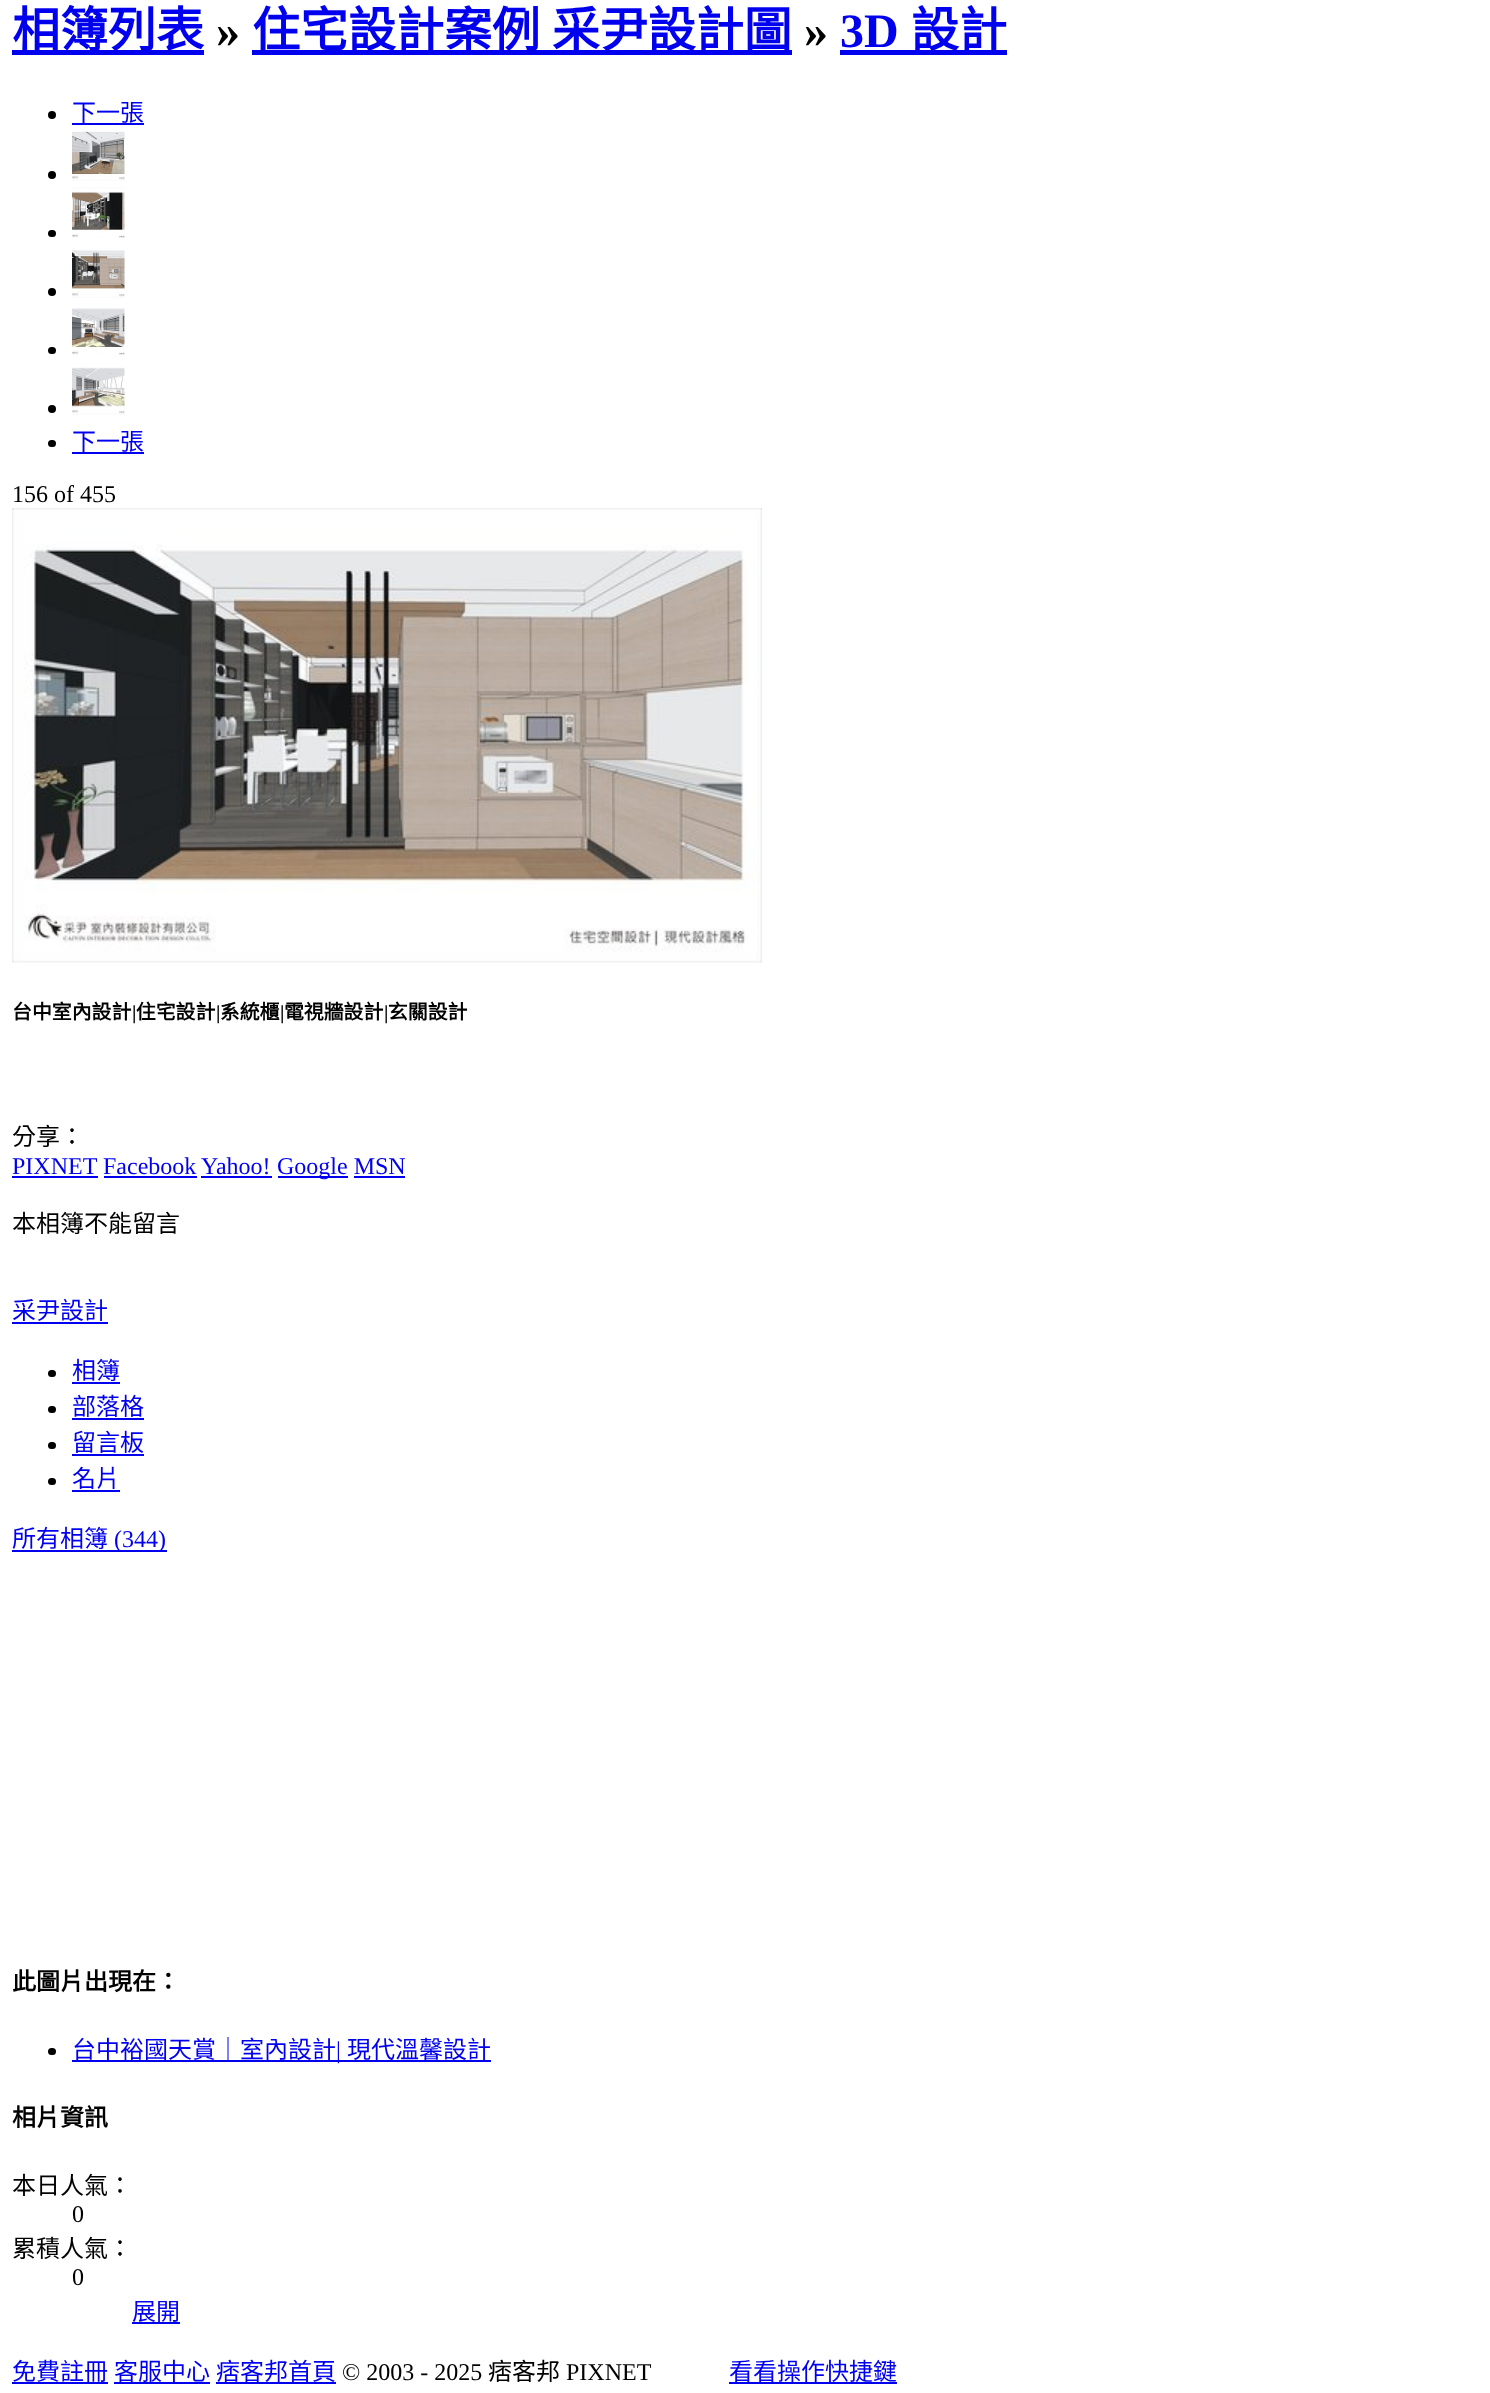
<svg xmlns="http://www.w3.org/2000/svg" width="1490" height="2393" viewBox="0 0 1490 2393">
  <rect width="100%" height="100%" fill="rgb(255,255,255)"/>
  <rect x="12" y="50" width="192" height="5" fill="rgb(0,0,238)"/>
  <text x="12" y="47" font-family="Noto Sans CJK TC" font-size="48" font-weight="bold" fill="rgb(0,0,238)">相簿列表</text>
  <text x="216" y="47" font-family="Liberation Serif" font-size="48" font-weight="bold" fill="rgb(0,0,0)">»</text>
  <rect x="252" y="50" width="540" height="5" fill="rgb(0,0,238)"/>
  <text x="252" y="47" word-spacing="1" font-family="Noto Sans CJK TC" font-size="48" font-weight="bold" fill="rgb(0,0,238)">住宅設計案例 采尹設計圖</text>
  <text x="804" y="47" font-family="Liberation Serif" font-size="48" font-weight="bold" fill="rgb(0,0,0)">»</text>
  <text x="840" y="47" font-family="Liberation Serif" font-size="48" font-weight="bold" fill="rgb(0,0,238)">3D</text>
  <rect x="840" y="50" width="167" height="5" fill="rgb(0,0,238)"/>
  <text x="911" y="47" font-family="Noto Sans CJK TC" font-size="48" font-weight="bold" fill="rgb(0,0,238)">設計</text>
  <circle cx="52" cy="115" r="4" fill="rgb(0,0,0)"/>
  <text x="72" y="121" font-family="Noto Sans CJK TC" font-size="24" fill="rgb(0,0,238)">下一張</text>
  <rect x="72" y="123" width="72" height="2" fill="rgb(0,0,238)"/>
  <circle cx="52" cy="175" r="4" fill="rgb(0,0,0)"/>
  <image x="72" y="131" width="53" height="50" href="pic1.png"/>
  <rect x="48" y="230" width="8" height="7" rx="3.5" fill="rgb(0,0,0)"/>
  <image x="72" y="187" width="53" height="51" href="pic2.png"/>
  <circle cx="52" cy="292" r="4" fill="rgb(0,0,0)"/>
  <image x="72" y="250" width="53" height="48" href="pic3.png"/>
  <rect x="48" y="347" width="8" height="7" rx="3.5" fill="rgb(0,0,0)"/>
  <image x="72" y="308" width="53" height="47" href="pic4.png"/>
  <circle cx="52" cy="409" r="4" fill="rgb(0,0,0)"/>
  <image x="72" y="367" width="53" height="48" href="pic5.png"/>
  <rect x="48" y="440" width="8" height="7" rx="3.5" fill="rgb(0,0,0)"/>
  <text x="72" y="450" font-family="Noto Sans CJK TC" font-size="24" fill="rgb(0,0,238)">下一張</text>
  <rect x="72" y="452" width="72" height="2" fill="rgb(0,0,238)"/>
  <text x="12" y="502" font-family="Liberation Serif" font-size="24" fill="rgb(0,0,0)">156 of 455</text>
  <image x="12" y="508" width="750" height="455" href="pic6.png"/>
  <text x="12" y="1019" font-family="Noto Sans CJK TC" font-size="19.9" font-weight="bold" fill="rgb(0,0,0)">台中室內設計 住宅設計 系統櫃 電視牆設計 玄關設計</text>
  <g font-family="Liberation Serif" font-size="19.9" font-weight="bold" fill="rgb(0,0,0)">
    <text x="132" y="1019">|</text>
    <text x="216" y="1019">|</text>
    <text x="280" y="1019">|</text>
    <text x="384" y="1019">|</text>
  </g>
  <text x="12" y="1145" font-family="Noto Sans CJK TC" font-size="24" fill="rgb(0,0,0)">分享：</text>
  <text x="12" y="1174" font-family="Liberation Serif" font-size="24" fill="rgb(0,0,238)">PIXNET</text>
  <rect x="12" y="1176" width="86" height="2" fill="rgb(0,0,238)"/>
  <text x="103" y="1174" font-family="Liberation Serif" font-size="24" fill="rgb(0,0,238)">Facebook</text>
  <rect x="104" y="1176" width="93" height="2" fill="rgb(0,0,238)"/>
  <text x="201" y="1174" font-family="Liberation Serif" font-size="24" fill="rgb(0,0,238)">Yahoo!</text>
  <rect x="201" y="1176" width="71" height="2" fill="rgb(0,0,238)"/>
  <rect x="278" y="1176" width="70" height="2" fill="rgb(0,0,238)"/>
  <text x="277" y="1174" font-family="Liberation Serif" font-size="24" fill="rgb(0,0,238)">Google MSN</text>
  <rect x="354" y="1176" width="51" height="2" fill="rgb(0,0,238)"/>
  <text x="12" y="1232" font-family="Noto Sans CJK TC" font-size="24" fill="rgb(0,0,0)">本相簿不能留言</text>
  <text x="12" y="1319" font-family="Noto Sans CJK TC" font-size="24" fill="rgb(0,0,238)">采尹設計</text>
  <rect x="12" y="1322" width="96" height="2" fill="rgb(0,0,238)"/>
  <rect x="48" y="1370" width="8" height="7" rx="3.5" fill="rgb(0,0,0)"/>
  <text x="72" y="1379" font-family="Noto Sans CJK TC" font-size="24" fill="rgb(0,0,238)">相簿</text>
  <rect x="72" y="1382" width="48" height="2" fill="rgb(0,0,238)"/>
  <rect x="48" y="1406" width="8" height="7" rx="3.5" fill="rgb(0,0,0)"/>
  <text x="72" y="1415" font-family="Noto Sans CJK TC" font-size="24" fill="rgb(0,0,238)">部落格</text>
  <rect x="72" y="1418" width="72" height="2" fill="rgb(0,0,238)"/>
  <rect x="48" y="1442" width="8" height="7" rx="3.5" fill="rgb(0,0,0)"/>
  <text x="72" y="1451" font-family="Noto Sans CJK TC" font-size="24" fill="rgb(0,0,238)">留言板</text>
  <rect x="72" y="1454" width="72" height="2" fill="rgb(0,0,238)"/>
  <rect x="48" y="1478" width="8" height="7" rx="3.5" fill="rgb(0,0,0)"/>
  <text x="72" y="1487" font-family="Noto Sans CJK TC" font-size="24" fill="rgb(0,0,238)">名片</text>
  <rect x="72" y="1490" width="48" height="2" fill="rgb(0,0,238)"/>
  <text x="12" y="1547" font-family="Noto Sans CJK TC" font-size="24" fill="rgb(0,0,238)">所有相簿</text>
  <rect x="12" y="1550" width="155" height="2" fill="rgb(0,0,238)"/>
  <text x="114" y="1547" font-family="Liberation Serif" font-size="24" fill="rgb(0,0,238)">(344)</text>
  <text x="12" y="1990" font-family="Noto Sans CJK TC" font-size="24" font-weight="bold" fill="rgb(0,0,0)">此圖片出現在：</text>
  <rect x="48" y="2048" width="8" height="7" rx="3.5" fill="rgb(0,0,0)"/>
  <rect x="72" y="2060" width="419" height="2" fill="rgb(0,0,238)"/>
  <text x="72" y="2058" font-family="Noto Sans CJK TC" font-size="24" fill="rgb(0,0,238)">台中裕國天賞｜室內設計</text>
  <text x="336" y="2058" font-family="Liberation Serif" font-size="24" fill="rgb(0,0,238)">|</text>
  <text x="347" y="2058" font-family="Noto Sans CJK TC" font-size="24" fill="rgb(0,0,238)">現代溫馨設計</text>
  <text x="12" y="2126" font-family="Noto Sans CJK TC" font-size="24" font-weight="bold" fill="rgb(0,0,0)">相片資訊</text>
  <text x="12" y="2194" font-family="Noto Sans CJK TC" font-size="24" fill="rgb(0,0,0)">本日人氣：</text>
  <text x="72" y="2222" font-family="Liberation Serif" font-size="24" fill="rgb(0,0,0)">0</text>
  <text x="12" y="2257" font-family="Noto Sans CJK TC" font-size="24" fill="rgb(0,0,0)">累積人氣：</text>
  <text x="72" y="2285" font-family="Liberation Serif" font-size="24" fill="rgb(0,0,0)">0</text>
  <text x="132" y="2320" font-family="Noto Sans CJK TC" font-size="24" fill="rgb(0,0,238)">展開</text>
  <rect x="132" y="2322" width="48" height="2" fill="rgb(0,0,238)"/>
  <text x="12" y="2380" font-family="Noto Sans CJK TC" font-size="24" fill="rgb(0,0,238)">免費註冊</text>
  <rect x="12" y="2382" width="96" height="2" fill="rgb(0,0,238)"/>
  <text x="114" y="2380" font-family="Noto Sans CJK TC" font-size="24" fill="rgb(0,0,238)">客服中心</text>
  <rect x="114" y="2382" width="96" height="2" fill="rgb(0,0,238)"/>
  <text x="216" y="2380" font-family="Noto Sans CJK TC" font-size="24" fill="rgb(0,0,238)">痞客邦首頁</text>
  <rect x="216" y="2382" width="120" height="2" fill="rgb(0,0,238)"/>
  <text x="342" y="2380" font-family="Liberation Serif" font-size="24" fill="rgb(0,0,0)">© 2003 - 2025</text>
  <text x="488" y="2380" font-family="Noto Sans CJK TC" font-size="24" fill="rgb(0,0,0)">痞客邦</text>
  <text x="566" y="2380" font-family="Liberation Serif" font-size="24" fill="rgb(0,0,0)">PIXNET</text>
  <text x="729" y="2380" font-family="Noto Sans CJK TC" font-size="24" fill="rgb(0,0,238)">看看操作快捷鍵</text>
  <rect x="729" y="2382" width="168" height="2" fill="rgb(0,0,238)"/>
</svg>
